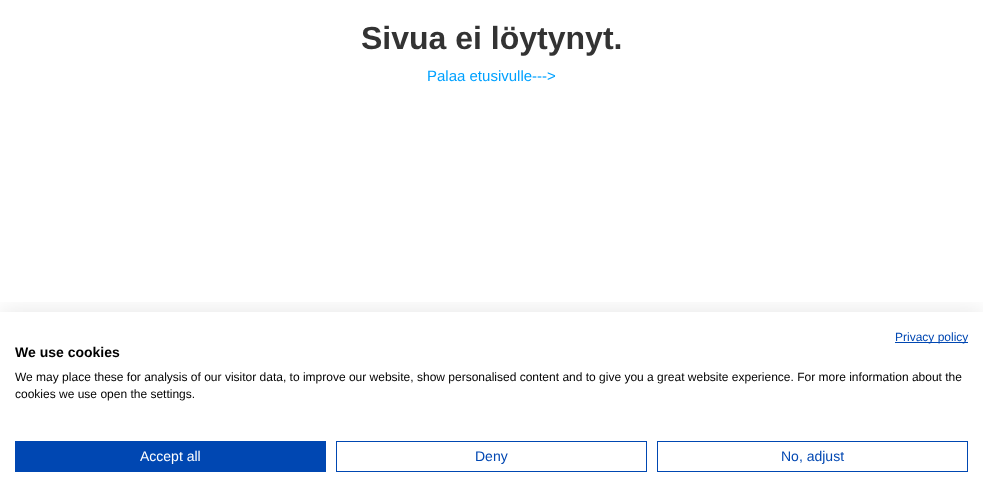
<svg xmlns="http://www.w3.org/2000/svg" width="983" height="499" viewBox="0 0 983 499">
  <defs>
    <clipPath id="clip1"><rect x="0" y="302" width="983" height="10"/></clipPath>
  </defs>
  <rect width="100%" height="100%" fill="rgb(255,255,255)"/>
  <text x="361" y="49" font-family="Liberation Sans" font-size="32" font-weight="bold" fill="rgb(51,51,51)">Sivua ei löytynyt.</text>
  <text x="427" y="81" font-family="Liberation Sans" font-size="15" fill="rgb(0,161,255)">Palaa etusivulle---&gt;</text>
  <g clip-path="url(#clip1)">
    <rect x="0" y="312" width="983" height="187" fill="rgba(0,0,0,0.1)" filter="blur(12px)"/>
  </g>
  <rect x="895" y="342" width="73" height="1" fill="rgb(0,71,178)"/>
  <text x="895" y="341" font-family="Liberation Sans" font-size="12" fill="rgb(0,71,178)">Privacy policy</text>
  <text x="15" y="357" font-family="Liberation Sans" font-size="14" font-weight="bold" fill="rgb(0,0,0)">We use cookies</text>
  <g font-family="Liberation Sans" font-size="12" fill="rgb(0,0,0)">
    <text>
      <tspan x="15" y="381">We may place these for analysis of our visitor data, to improve our website, show personalised content and to give you a great website experience. For more information about the</tspan>
      <tspan x="15" y="398">cookies we use open the settings.</tspan>
    </text>
  </g>
  <rect x="15" y="441" width="311" height="31" fill="rgb(0,71,178)"/>
  <text x="140" y="461" font-family="Liberation Sans" font-size="14" fill="rgb(255,255,255)">Accept all</text>
  <rect x="336.5" y="441.5" width="310" height="30" fill="none" stroke="rgb(0,71,178)"/>
  <text x="475" y="461" font-family="Liberation Sans" font-size="14" fill="rgb(0,71,178)">Deny</text>
  <rect x="657.5" y="441.5" width="310" height="30" fill="none" stroke="rgb(0,71,178)"/>
  <text x="781" y="461" font-family="Liberation Sans" font-size="14" fill="rgb(0,71,178)">No, adjust</text>
</svg>
